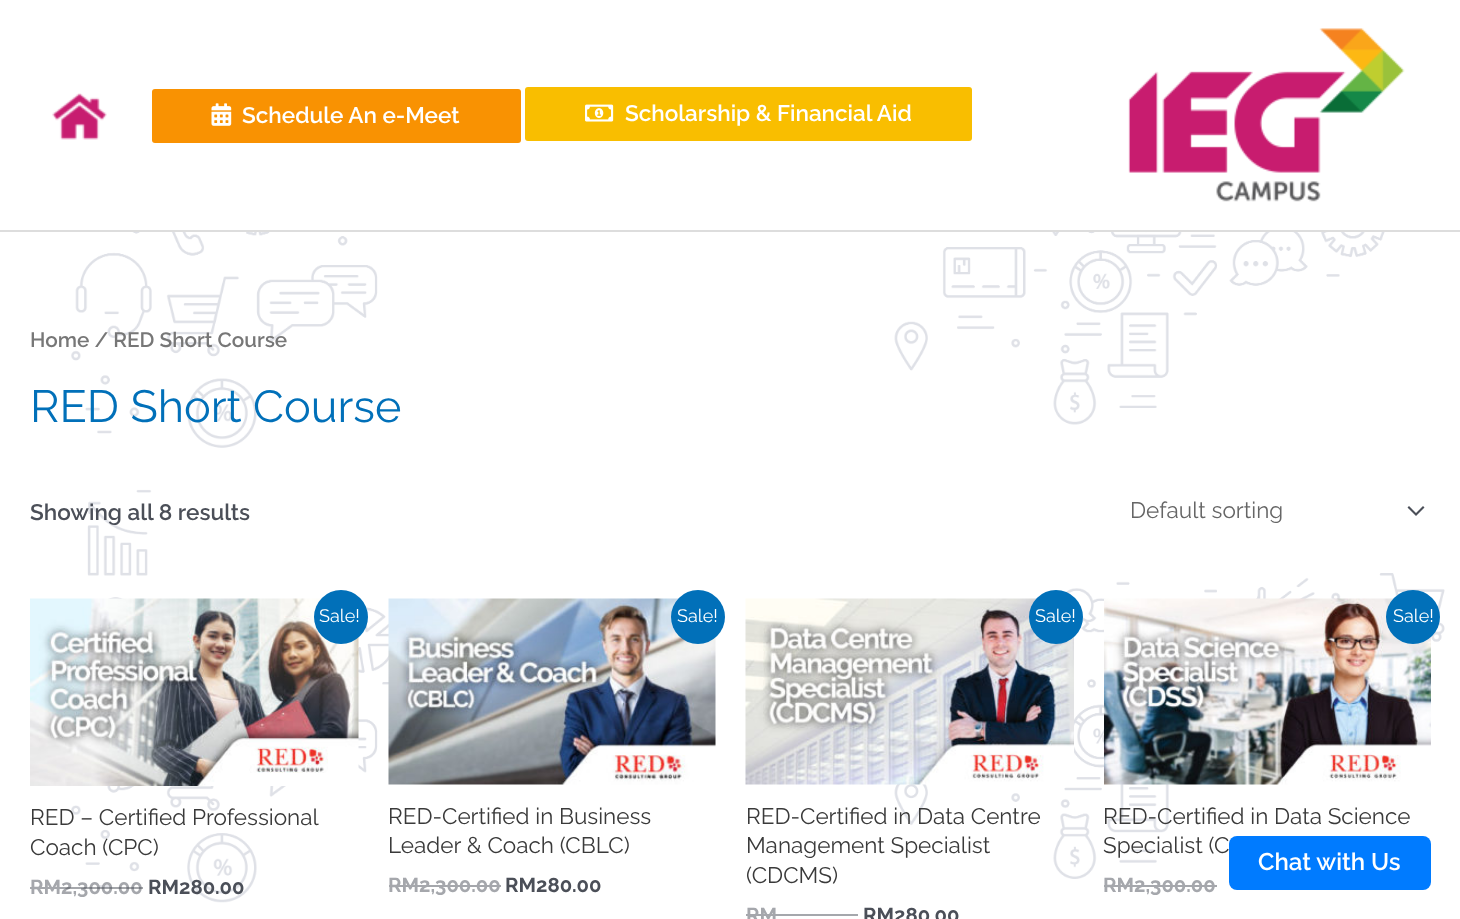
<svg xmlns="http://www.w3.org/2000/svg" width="1460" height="919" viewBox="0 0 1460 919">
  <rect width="100%" height="100%" fill="rgb(255,255,255)"/>
  <image x="71" y="232" width="1374" height="671" href="pic1.png"/>
  <rect x="0" y="230" width="1460" height="2" fill="rgb(221,221,221)"/>
  <image x="52" y="93" width="55" height="47" href="pic2.png"/>
  <rect x="152" y="89" width="369" height="54" rx="3" fill="rgb(249,146,2)"/>
  <image x="211" y="103" width="21" height="23" href="pic3.png"/>
  <text x="242" y="123" font-family="Raleway" font-size="22.5" font-weight="600" fill="rgb(255,255,255)">Schedule An e-Meet</text>
  <rect x="525" y="87" width="447" height="54" rx="3" fill="rgb(249,190,0)"/>
  <image x="585" y="104" width="29" height="18" href="pic4.png"/>
  <text x="625" y="121" font-family="Raleway" font-size="22.5" font-weight="600" fill="rgb(255,255,255)">Scholarship &amp; Financial Aid</text>
  <image x="1128" y="28" width="277" height="174" href="pic5.png"/>
  <text x="30" y="347" font-family="Raleway" font-size="20.75" font-weight="600" fill="rgb(119,119,119)">Home / RED Short Course</text>
  <text x="30" y="422" font-family="Raleway" font-size="45" fill="rgb(1,112,185)">RED Short Course</text>
  <text x="30" y="520" font-family="Raleway" font-size="22.5" font-weight="600" fill="rgb(75,79,88)">Showing all 8 results</text>
  <path d="M1407.5 507.5L1416 516L1424.5 507.5L1423 506L1416 513L1409 506Z" fill="rgb(75,79,88)"/>
  <text x="1130" y="518" font-family="Raleway" font-size="22.5" fill="rgb(102,102,102)">Default sorting</text>
  <image x="30" y="598" width="329" height="188" href="pic6.png"/>
  <circle cx="341" cy="617" r="27" fill="rgb(1,112,185)"/>
  <text x="319" y="622" font-family="Raleway" font-size="18" fill="rgb(255,255,255)">Sale!</text>
  <g font-family="Raleway" font-size="22.5" fill="rgb(58,58,58)">
    <text>
      <tspan x="30" y="825">RED – Certified Professional</tspan>
      <tspan x="30" y="855">Coach (CPC)</tspan>
    </text>
  </g>
  <text x="30" y="894" font-family="Raleway" font-size="20.25" font-weight="bold" fill="rgb(165,167,172)">RM</text>
  <rect x="30" y="887" width="32" height="2" fill="rgb(165,167,172)"/>
  <text x="61" y="894" font-family="Raleway" font-size="20.25" font-weight="bold" fill="rgb(165,167,172)">2,300.00</text>
  <rect x="62" y="887" width="81" height="2" fill="rgba(75,79,88,0.5)"/>
  <text x="148" y="894" font-family="Raleway" font-size="20.25" font-weight="bold" fill="rgb(75,79,88)">RM280.00</text>
  <image x="388" y="598" width="328" height="187" href="pic7.png"/>
  <circle cx="698" cy="617" r="27" fill="rgb(1,112,185)"/>
  <text x="677" y="622" font-family="Raleway" font-size="18" fill="rgb(255,255,255)">Sale!</text>
  <g font-family="Raleway" font-size="22.5" fill="rgb(58,58,58)">
    <text>
      <tspan x="388" y="824">RED-Certified in Business</tspan>
      <tspan x="388" y="853">Leader &amp; Coach (CBLC)</tspan>
    </text>
  </g>
  <text x="388" y="892" font-family="Raleway" font-size="20.25" font-weight="bold" fill="rgb(165,167,172)">RM2,300.00</text>
  <rect x="389" y="885" width="112" height="2" fill="rgb(165,167,172)"/>
  <text x="505" y="892" font-family="Raleway" font-size="20.25" font-weight="bold" fill="rgb(75,79,88)">RM280.00</text>
  <image x="745" y="598" width="329" height="187" href="pic8.png"/>
  <circle cx="1056" cy="617" r="27" fill="rgb(1,112,185)"/>
  <text x="1035" y="622" font-family="Raleway" font-size="18" fill="rgb(255,255,255)">Sale!</text>
  <g font-family="Raleway" font-size="22.5" fill="rgb(58,58,58)">
    <text>
      <tspan x="746" y="824">RED-Certified in Data Centre</tspan>
      <tspan x="746" y="853">Management Specialist</tspan>
      <tspan x="746" y="883">(CDCMS)</tspan>
    </text>
  </g>
  <text x="746" y="922" font-family="Raleway" font-size="20.25" font-weight="bold" fill="rgb(165,167,172)">RM</text>
  <rect x="746" y="914" width="112" height="2" fill="rgb(165,167,172)"/>
  <text x="863" y="922" font-family="Raleway" font-size="20.25" font-weight="bold" fill="rgb(75,79,88)">RM280.00</text>
  <image x="1104" y="598" width="327" height="187" href="pic9.png"/>
  <circle cx="1413" cy="617" r="27" fill="rgb(1,112,185)"/>
  <text x="1393" y="622" font-family="Raleway" font-size="18" fill="rgb(255,255,255)">Sale!</text>
  <g font-family="Raleway" font-size="22.5" fill="rgb(58,58,58)">
    <text>
      <tspan x="1103" y="824">RED-Certified in Data Science</tspan>
      <tspan x="1103" y="853">Specialist (C</tspan>
    </text>
  </g>
  <text x="1103" y="892" font-family="Raleway" font-size="20.25" font-weight="bold" fill="rgb(165,167,172)">RM2,300.00</text>
  <rect x="1104" y="885" width="113" height="2" fill="rgb(165,167,172)"/>
  <rect x="1229" y="836" width="202" height="54" rx="8" fill="rgb(0,123,255)"/>
  <text x="1258" y="870" font-family="Raleway" font-size="24" font-weight="600" fill="rgb(255,255,255)">Chat with Us</text>
</svg>
